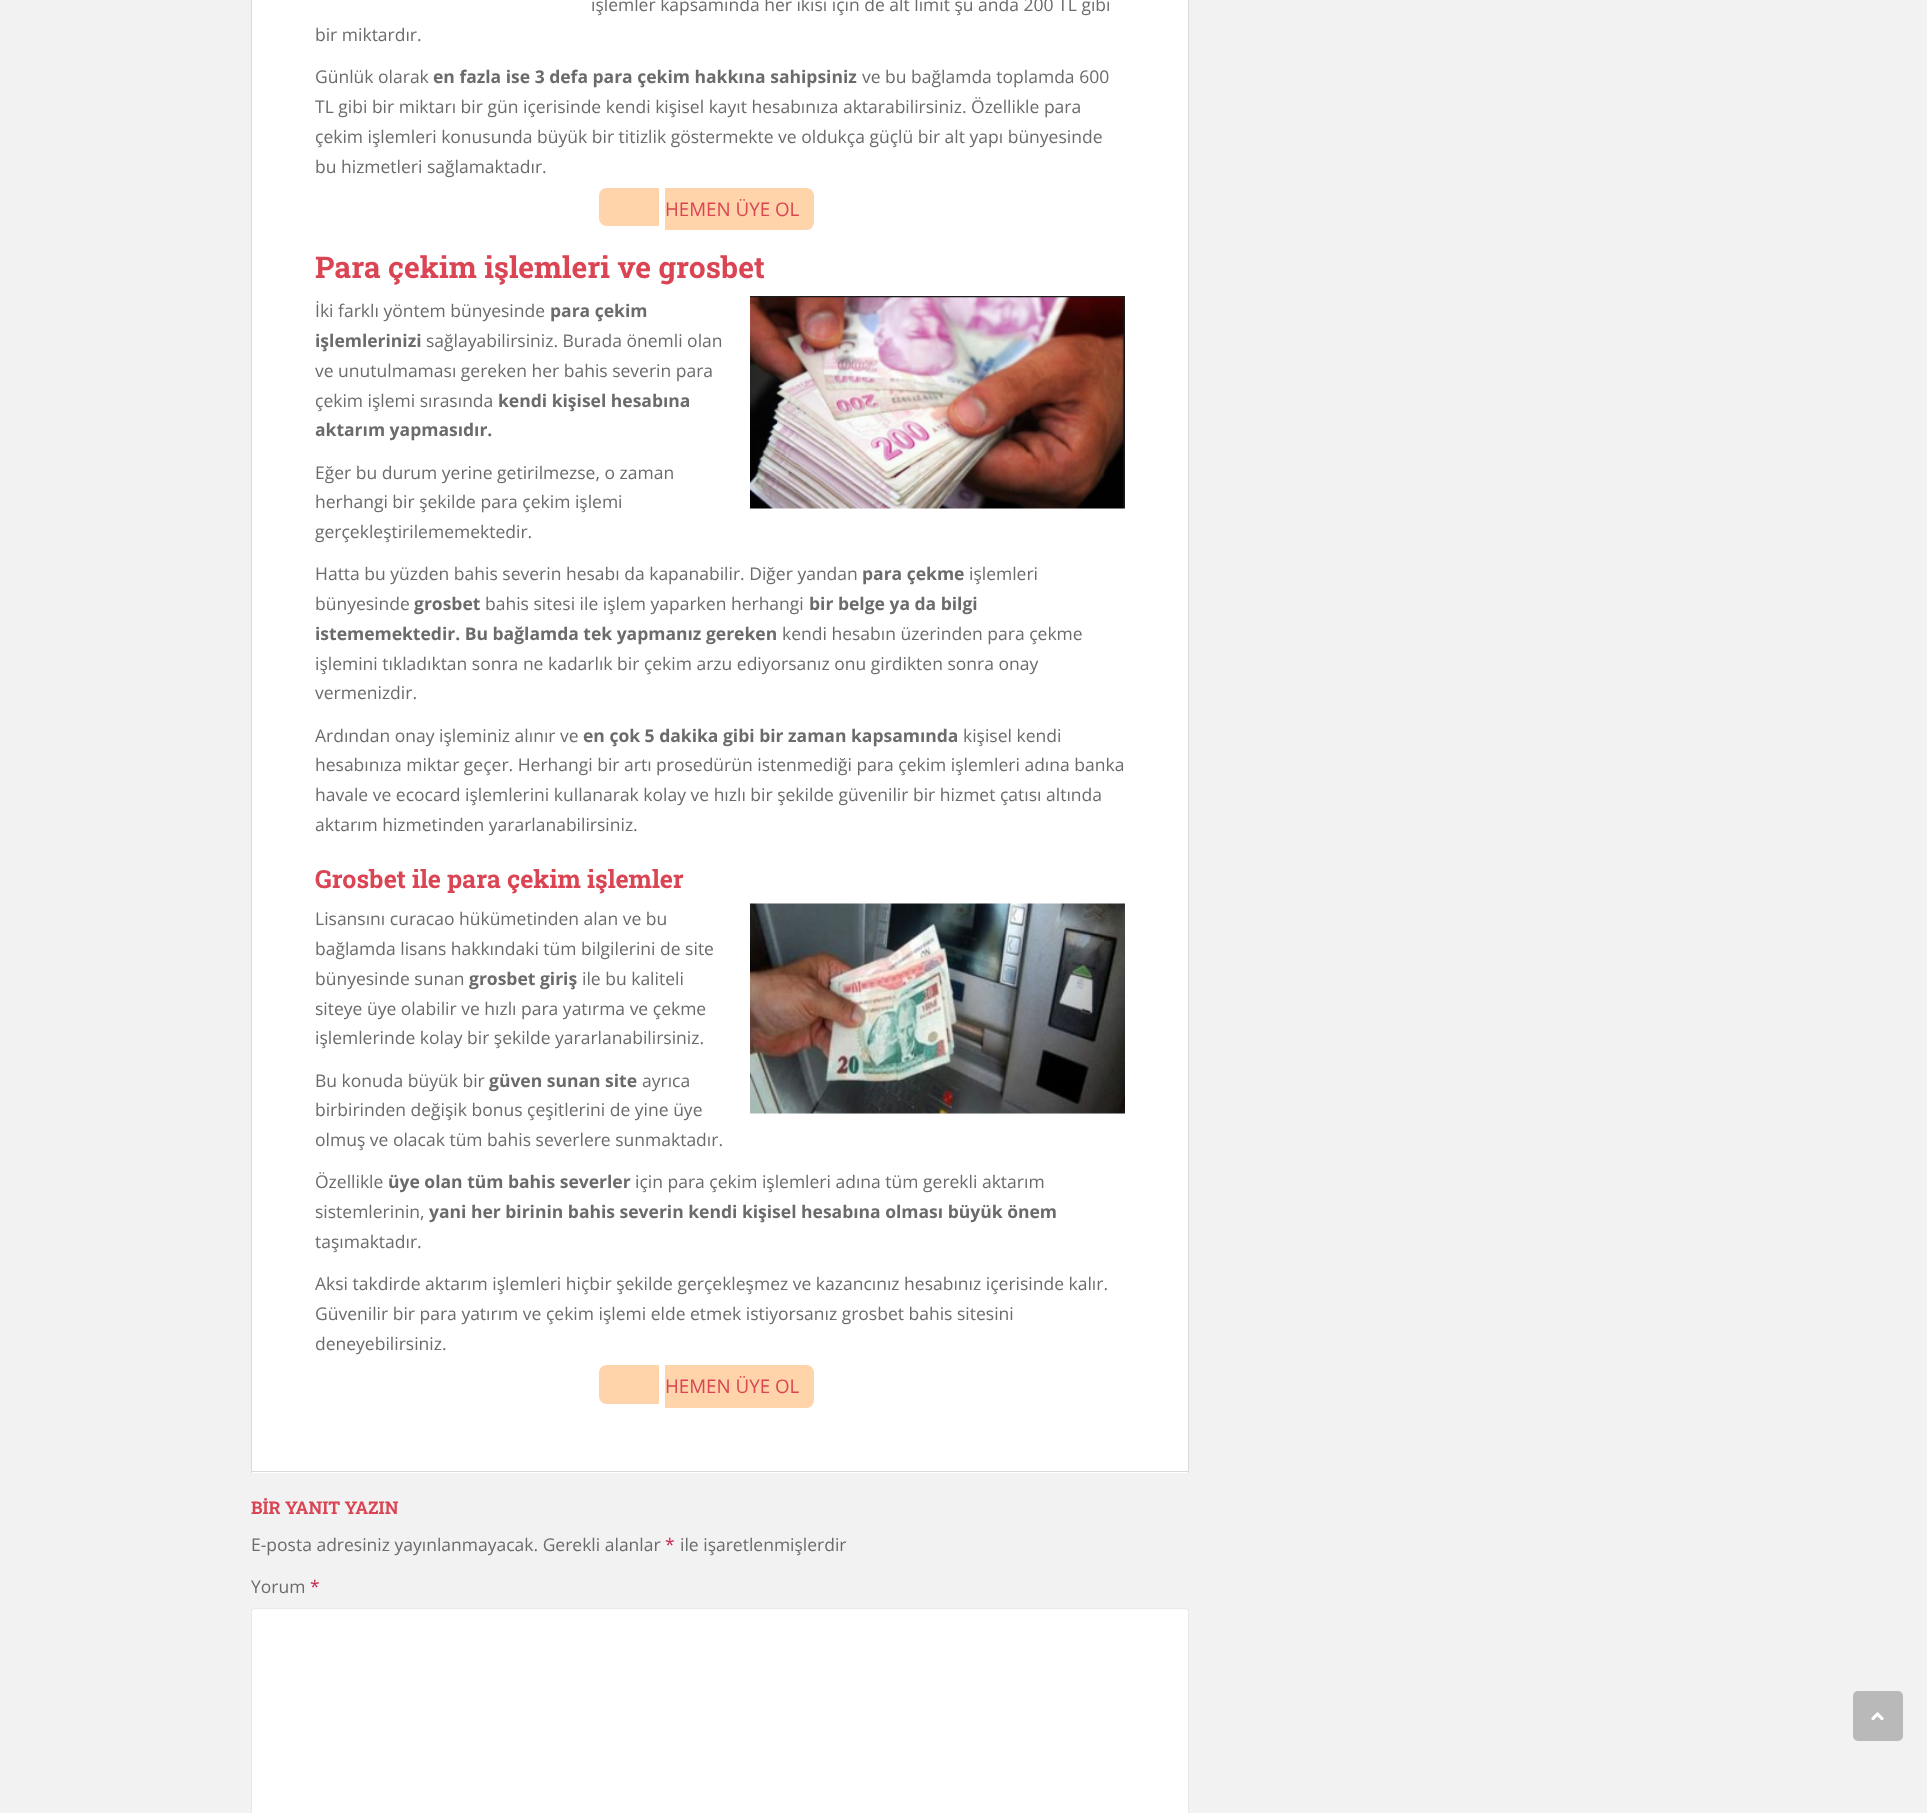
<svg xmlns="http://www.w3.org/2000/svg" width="1927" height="1813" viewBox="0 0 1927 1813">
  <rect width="100%" height="100%" fill="rgb(242,242,242)"/>
  <rect x="252" y="0" width="936" height="1473" fill="rgb(255,255,255)"/>
  <rect x="1188" y="0" width="1" height="1473" fill="rgb(218,218,218)"/>
  <rect x="251" y="1471" width="938" height="1" fill="rgb(218,218,218)"/>
  <rect x="251" y="0" width="1" height="1473" fill="rgb(218,218,218)"/>
  <g font-family="Open Sans" font-size="17.5" fill="rgb(107,107,107)">
    <text x="591" y="11">işlemler kapsamında her ikisi için de alt limit şu anda 200 TL gibi</text>
    <text x="315" y="41">bir miktardır.</text>
    <text x="315" y="83">Günlük olarak</text>
  </g>
  <text x="433" y="83" font-family="Open Sans" font-size="17.5" font-weight="bold" fill="rgb(107,107,107)">en fazla ise 3 defa para çekim hakkına sahipsiniz</text>
  <g font-family="Open Sans" font-size="17.5" fill="rgb(107,107,107)">
    <text x="862" y="83">ve bu bağlamda toplamda 600</text>
    <text>
      <tspan x="315" y="113">TL gibi bir miktarı bir gün içerisinde kendi kişisel kayıt hesabınıza aktarabilirsiniz. Özellikle para</tspan>
      <tspan x="315" y="143">çekim işlemleri konusunda büyük bir titizlik göstermekte ve oldukça güçlü bir alt yapı bünyesinde</tspan>
      <tspan x="315" y="173">bu hizmetleri sağlamaktadır.</tspan>
    </text>
  </g>
  <path d="M665 188H806C810.5 188 814 191.5 814 196V222C814 226.5 810.5 230 806 230H665Z" fill="rgb(255,212,170)"/>
  <text x="665" y="216" font-family="Open Sans" font-size="18.75" fill="rgb(218,68,83)">HEMEN ÜYE OL</text>
  <path d="M607 188H659V226H607C602.5 226 599 222.5 599 218V196C599 191.5 602.5 188 607 188Z" fill="rgb(255,212,170)"/>
  <text x="315" y="278" font-family="Roboto Slab" font-size="30" font-weight="bold" fill="rgb(218,68,83)">Para çekim işlemleri ve grosbet</text>
  <text x="315" y="317" font-family="Open Sans" font-size="17.5" fill="rgb(107,107,107)">İki farklı yöntem bünyesinde</text>
  <text x="550" y="317" font-family="Open Sans" font-size="17.5" font-weight="bold" fill="rgb(107,107,107)">para çekim</text>
  <image x="750" y="296" width="375" height="213" href="pic1.png"/>
  <text x="315" y="347" font-family="Open Sans" font-size="17.5" font-weight="bold" fill="rgb(107,107,107)">işlemlerinizi</text>
  <g font-family="Open Sans" font-size="17.5" fill="rgb(107,107,107)">
    <text x="426" y="347">sağlayabilirsiniz. Burada önemli olan</text>
    <text>
      <tspan x="315" y="377">ve unutulmaması gereken her bahis severin para</tspan>
      <tspan x="315" y="407">çekim işlemi sırasında</tspan>
    </text>
  </g>
  <g font-family="Open Sans" font-size="17.5" font-weight="bold" fill="rgb(107,107,107)">
    <text x="498" y="407">kendi kişisel hesabına</text>
    <text x="315" y="436">aktarım yapmasıdır.</text>
  </g>
  <g font-family="Open Sans" font-size="17.5" fill="rgb(107,107,107)">
    <text>
      <tspan x="315" y="479">Eğer bu durum yerine getirilmezse, o zaman</tspan>
      <tspan x="315" y="508">herhangi bir şekilde para çekim işlemi</tspan>
      <tspan x="315" y="538">gerçekleştirilememektedir.</tspan>
    </text>
    <text x="315" y="580">Hatta bu yüzden bahis severin hesabı da kapanabilir. Diğer yandan</text>
  </g>
  <text x="862" y="580" font-family="Open Sans" font-size="17.5" font-weight="bold" fill="rgb(107,107,107)">para çekme</text>
  <g font-family="Open Sans" font-size="17.5" fill="rgb(107,107,107)">
    <text x="969" y="580">işlemleri</text>
    <text x="315" y="610">bünyesinde</text>
  </g>
  <text x="414" y="610" font-family="Open Sans" font-size="17.5" font-weight="bold" fill="rgb(107,107,107)">grosbet</text>
  <text x="485" y="610" font-family="Open Sans" font-size="17.5" fill="rgb(107,107,107)">bahis sitesi ile işlem yaparken herhangi</text>
  <g font-family="Open Sans" font-size="17.5" font-weight="bold" fill="rgb(107,107,107)">
    <text x="809" y="610">bir belge ya da bilgi</text>
    <text x="315" y="640">istememektedir. Bu bağlamda tek yapmanız gereken</text>
  </g>
  <g font-family="Open Sans" font-size="17.5" fill="rgb(107,107,107)">
    <text x="782" y="640">kendi hesabın üzerinden para çekme</text>
    <text>
      <tspan x="315" y="670">işlemini tıkladıktan sonra ne kadarlık bir çekim arzu ediyorsanız onu girdikten sonra onay</tspan>
      <tspan x="315" y="699">vermenizdir.</tspan>
    </text>
    <text x="315" y="742">Ardından onay işleminiz alınır ve</text>
  </g>
  <text x="583" y="742" font-family="Open Sans" font-size="17.5" font-weight="bold" fill="rgb(107,107,107)">en çok 5 dakika gibi bir zaman kapsamında</text>
  <g font-family="Open Sans" font-size="17.5" fill="rgb(107,107,107)">
    <text x="963" y="742">kişisel kendi</text>
    <text>
      <tspan x="315" y="771">hesabınıza miktar geçer. Herhangi bir artı prosedürün istenmediği para çekim işlemleri adına banka</tspan>
      <tspan x="315" y="801">havale ve ecocard işlemlerini kullanarak kolay ve hızlı bir şekilde güvenilir bir hizmet çatısı altında</tspan>
      <tspan x="315" y="831">aktarım hizmetinden yararlanabilirsiniz.</tspan>
    </text>
  </g>
  <text x="315" y="888" font-family="Roboto Slab" font-size="25" font-weight="bold" fill="rgb(218,68,83)">Grosbet ile para çekim işlemler</text>
  <g font-family="Open Sans" font-size="17.5" fill="rgb(107,107,107)">
    <text>
      <tspan x="315" y="925">Lisansını curacao hükümetinden alan ve bu</tspan>
      <tspan x="315" y="955">bağlamda lisans hakkındaki tüm bilgilerini de site</tspan>
      <tspan x="315" y="985">bünyesinde sunan</tspan>
    </text>
  </g>
  <text x="469" y="985" font-family="Open Sans" font-size="17.5" font-weight="bold" fill="rgb(107,107,107)">grosbet giriş</text>
  <g font-family="Open Sans" font-size="17.5" fill="rgb(107,107,107)">
    <text x="582" y="985">ile bu kaliteli</text>
    <text>
      <tspan x="315" y="1015">siteye üye olabilir ve hızlı para yatırma ve çekme</tspan>
      <tspan x="315" y="1044">işlemlerinde kolay bir şekilde yararlanabilirsiniz.</tspan>
    </text>
  </g>
  <image x="750" y="903" width="375" height="211" href="pic2.png"/>
  <text x="315" y="1087" font-family="Open Sans" font-size="17.5" fill="rgb(107,107,107)">Bu konuda büyük bir</text>
  <text x="489" y="1087" font-family="Open Sans" font-size="17.5" font-weight="bold" fill="rgb(107,107,107)">güven sunan site</text>
  <g font-family="Open Sans" font-size="17.5" fill="rgb(107,107,107)">
    <text x="642" y="1087">ayrıca</text>
    <text>
      <tspan x="315" y="1116">birbirinden değişik bonus çeşitlerini de yine üye</tspan>
      <tspan x="315" y="1146">olmuş ve olacak tüm bahis severlere sunmaktadır.</tspan>
    </text>
    <text x="315" y="1188">Özellikle</text>
  </g>
  <text x="388" y="1188" font-family="Open Sans" font-size="17.5" font-weight="bold" fill="rgb(107,107,107)">üye olan tüm bahis severler</text>
  <g font-family="Open Sans" font-size="17.5" fill="rgb(107,107,107)">
    <text x="635" y="1188">için para çekim işlemleri adına tüm gerekli aktarım</text>
    <text x="315" y="1218">sistemlerinin,</text>
  </g>
  <text x="429" y="1218" font-family="Open Sans" font-size="17.5" font-weight="bold" fill="rgb(107,107,107)">yani her birinin bahis severin kendi kişisel hesabına olması büyük önem</text>
  <g font-family="Open Sans" font-size="17.5" fill="rgb(107,107,107)">
    <text x="315" y="1248">taşımaktadır.</text>
    <text>
      <tspan x="315" y="1290">Aksi takdirde aktarım işlemleri hiçbir şekilde gerçekleşmez ve kazancınız hesabınız içerisinde kalır.</tspan>
      <tspan x="315" y="1320">Güvenilir bir para yatırım ve çekim işlemi elde etmek istiyorsanız grosbet bahis sitesini</tspan>
      <tspan x="315" y="1350">deneyebilirsiniz.</tspan>
    </text>
  </g>
  <path d="M665 1365H806C810.5 1365 814 1368.5 814 1373V1400C814 1404.5 810.5 1408 806 1408H665Z" fill="rgb(255,212,170)"/>
  <text x="665" y="1393" font-family="Open Sans" font-size="18.75" fill="rgb(218,68,83)">HEMEN ÜYE OL</text>
  <path d="M607 1365H659V1404H607C602.5 1404 599 1400.5 599 1396V1373C599 1368.5 602.5 1365 607 1365Z" fill="rgb(255,212,170)"/>
  <text x="251" y="1514" font-family="Roboto Slab" font-size="17.5" font-weight="bold" fill="rgb(218,68,83)">BİR YANIT YAZIN</text>
  <text x="251" y="1551" font-family="Open Sans" font-size="17.5" fill="rgb(107,107,107)">E-posta adresiniz yayınlanmayacak. Gerekli alanlar</text>
  <text x="665" y="1551" font-family="Open Sans" font-size="17.5" fill="rgb(199,37,78)">*</text>
  <g font-family="Open Sans" font-size="17.5" fill="rgb(107,107,107)">
    <text x="680" y="1551">ile işaretlenmişlerdir</text>
    <text x="251" y="1593">Yorum</text>
  </g>
  <text x="310" y="1593" font-family="Open Sans" font-size="17.5" fill="rgb(199,37,78)">*</text>
  <rect x="251.5" y="1608.5" width="937" height="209" rx="3.5" fill="rgb(255,255,255)" stroke="rgb(232,232,232)"/>
  <rect x="1853" y="1691" width="50" height="50" rx="5" fill="rgb(185,185,185)"/>
  <image x="1871" y="1712" width="13" height="9" href="pic3.png"/>
</svg>
